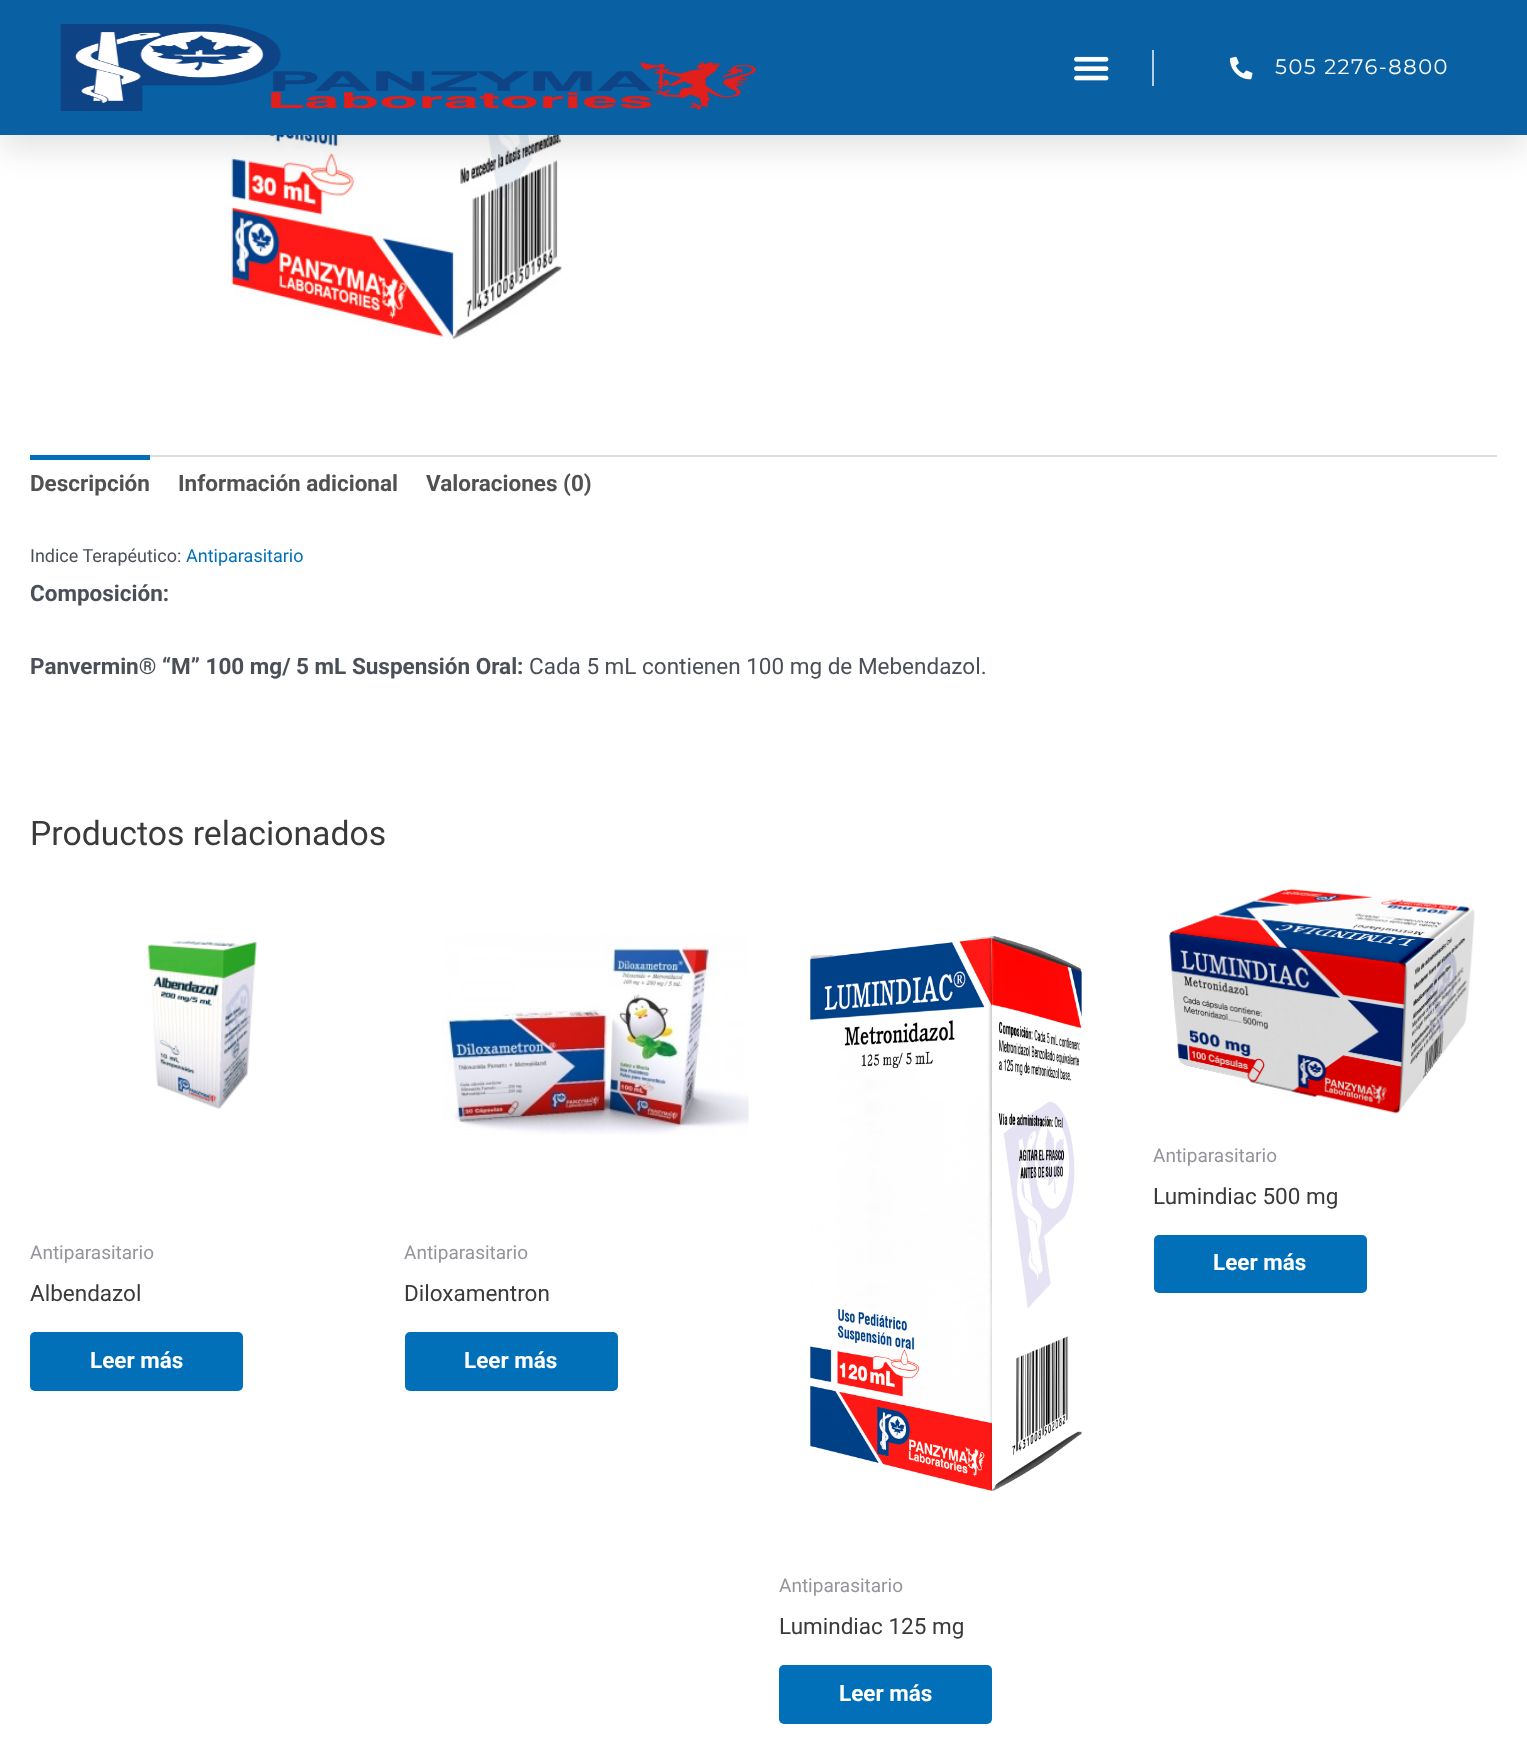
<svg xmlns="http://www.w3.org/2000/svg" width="1527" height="1756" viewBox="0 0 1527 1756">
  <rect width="100%" height="100%" fill="rgb(255,255,255)"/>
  <image x="226" y="135" width="336" height="210" href="pic4.png"/>
  <rect x="0" y="15" width="1527" height="135" fill="rgba(0,0,0,0.1)" filter="blur(15px)"/>
  <rect x="0" y="0" width="1527" height="135" fill="rgb(9,96,163)"/>
  <image x="60" y="24" width="697" height="87" href="pic1.png"/>
  <image x="1074" y="56" width="35" height="25" href="pic2.png"/>
  <rect x="1152" y="50" width="2" height="36" fill="rgb(181,207,227)"/>
  <image x="1230" y="56" width="23" height="24" href="pic3.png"/>
  <text x="1275" y="74" font-family="Montserrat" font-size="21" letter-spacing="1.5" fill="rgb(255,255,255)">505 2276-8800</text>
  <rect x="150" y="455" width="1347" height="2" fill="rgb(221,221,221)"/>
  <rect x="30" y="455" width="120" height="5" fill="rgb(1,112,185)"/>
  <g font-family="Roboto" font-size="22.5" font-weight="bold" fill="rgb(81,81,81)">
    <text x="30" y="491">Descripción</text>
    <text x="178" y="491">Información adicional</text>
    <text x="426" y="491">Valoraciones (0)</text>
  </g>
  <text x="30" y="562" font-family="Roboto" font-size="18" fill="rgb(75,79,88)">Indice Terapéutico:</text>
  <text x="186" y="562" font-family="Roboto" font-size="18" fill="rgb(1,112,185)">Antiparasitario</text>
  <g font-family="Roboto" font-size="22.5" font-weight="bold" fill="rgb(75,79,88)">
    <text x="30" y="601">Composición:</text>
    <text x="30" y="674">Panvermin® “M” 100 mg/ 5 mL Suspensión Oral:</text>
  </g>
  <text x="529" y="674" font-family="Roboto" font-size="22.5" fill="rgb(75,79,88)">Cada 5 mL contienen 100 mg de Mebendazol.</text>
  <text x="30" y="845" font-family="Roboto" font-size="33.75" fill="rgb(58,58,58)">Productos relacionados</text>
  <image x="1169" y="888" width="306" height="226" href="pic5.png"/>
  <text x="1153" y="1162" font-family="Roboto" font-size="19" fill="rgb(147,149,155)">Antiparasitario</text>
  <text x="1153" y="1204" font-family="Roboto" font-size="22.5" fill="rgb(58,58,58)">Lumindiac 500 mg</text>
  <rect x="1154" y="1235" width="213" height="58" rx="5" fill="rgb(1,112,185)"/>
  <text x="1213" y="1270" font-family="Roboto" font-size="22.5" font-weight="bold" fill="rgb(255,255,255)">Leer más</text>
  <image x="147" y="941" width="110" height="168" href="pic6.png"/>
  <text x="30" y="1259" font-family="Roboto" font-size="19" fill="rgb(147,149,155)">Antiparasitario</text>
  <text x="30" y="1301" font-family="Roboto" font-size="22.5" fill="rgb(58,58,58)">Albendazol</text>
  <rect x="30" y="1332" width="213" height="59" rx="5" fill="rgb(1,112,185)"/>
  <text x="90" y="1368" font-family="Roboto" font-size="22.5" font-weight="bold" fill="rgb(255,255,255)">Leer más</text>
  <image x="442" y="934" width="307" height="201" href="pic7.png"/>
  <text x="404" y="1259" font-family="Roboto" font-size="19" fill="rgb(147,149,155)">Antiparasitario</text>
  <text x="404" y="1301" font-family="Roboto" font-size="22.5" fill="rgb(58,58,58)">Diloxamentron</text>
  <rect x="405" y="1332" width="213" height="59" rx="5" fill="rgb(1,112,185)"/>
  <text x="464" y="1368" font-family="Roboto" font-size="22.5" font-weight="bold" fill="rgb(255,255,255)">Leer más</text>
  <image x="810" y="935" width="272" height="556" href="pic8.png"/>
  <text x="779" y="1592" font-family="Roboto" font-size="19" fill="rgb(147,149,155)">Antiparasitario</text>
  <text x="779" y="1634" font-family="Roboto" font-size="22.5" fill="rgb(58,58,58)">Lumindiac 125 mg</text>
  <rect x="779" y="1665" width="213" height="59" rx="5" fill="rgb(1,112,185)"/>
  <text x="839" y="1701" font-family="Roboto" font-size="22.5" font-weight="bold" fill="rgb(255,255,255)">Leer más</text>
</svg>
